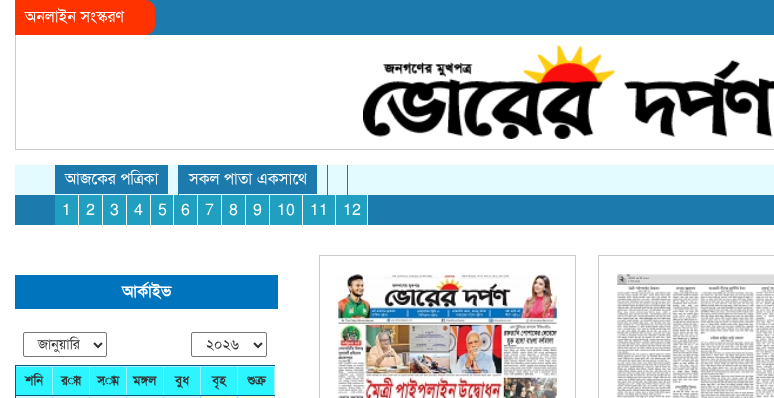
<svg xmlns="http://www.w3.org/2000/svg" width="774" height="398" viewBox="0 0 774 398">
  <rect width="100%" height="100%" fill="rgb(255,255,255)"/>
  <rect x="145" y="0" width="629" height="35" fill="rgb(29,122,173)"/>
  <path d="M15 0H145C150.5 0 155 4.5 155 10V25C155 30.5 150.5 35 145 35H15Z" fill="rgb(255,51,0)"/>
  <text x="25" y="22" font-family="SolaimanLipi" font-size="16" fill="rgb(255,255,255)">অনলাইন সংস্করণ</text>
  <rect x="15" y="149" width="759" height="1" fill="rgb(204,204,204)"/>
  <rect x="15" y="35" width="1" height="115" fill="rgb(204,204,204)"/>
  <image x="363" y="45" width="411" height="94" href="pic1.png"/>
  <rect x="15" y="165" width="759" height="30" fill="rgb(227,250,255)"/>
  <rect x="347" y="165" width="1" height="30" fill="rgb(29,122,173)"/>
  <rect x="178" y="165" width="1" height="30" fill="rgb(29,122,173)"/>
  <rect x="55" y="165" width="113" height="29" fill="rgb(29,122,173)"/>
  <text x="65" y="184" font-family="SolaimanLipi" font-size="16" fill="rgb(255,255,255)">আজকের পত্রিকা</text>
  <rect x="15" y="195" width="759" height="30" fill="rgb(29,122,173)"/>
  <rect x="78" y="195" width="1" height="30" fill="rgb(255,255,255)"/>
  <rect x="55" y="195" width="23" height="30" fill="rgb(33,159,192)"/>
  <text x="62" y="215" font-family="SolaimanLipi" font-size="16" fill="rgb(255,255,255)">1</text>
  <rect x="102" y="195" width="1" height="30" fill="rgb(255,255,255)"/>
  <rect x="79" y="195" width="23" height="30" fill="rgb(33,159,192)"/>
  <text x="86" y="215" font-family="SolaimanLipi" font-size="16" fill="rgb(255,255,255)">2</text>
  <rect x="126" y="195" width="1" height="30" fill="rgb(255,255,255)"/>
  <rect x="103" y="195" width="23" height="30" fill="rgb(33,159,192)"/>
  <text x="110" y="215" font-family="SolaimanLipi" font-size="16" fill="rgb(255,255,255)">3</text>
  <rect x="150" y="195" width="1" height="30" fill="rgb(255,255,255)"/>
  <rect x="127" y="195" width="23" height="30" fill="rgb(33,159,192)"/>
  <text x="134" y="215" font-family="SolaimanLipi" font-size="16" fill="rgb(255,255,255)">4</text>
  <rect x="173" y="195" width="1" height="30" fill="rgb(255,255,255)"/>
  <rect x="151" y="195" width="22" height="30" fill="rgb(33,159,192)"/>
  <text x="158" y="215" font-family="SolaimanLipi" font-size="16" fill="rgb(255,255,255)">5</text>
  <rect x="197" y="195" width="1" height="30" fill="rgb(255,255,255)"/>
  <rect x="174" y="195" width="23" height="30" fill="rgb(33,159,192)"/>
  <text x="181" y="215" font-family="SolaimanLipi" font-size="16" fill="rgb(255,255,255)">6</text>
  <rect x="221" y="195" width="1" height="30" fill="rgb(255,255,255)"/>
  <rect x="198" y="195" width="23" height="30" fill="rgb(33,159,192)"/>
  <text x="205" y="215" font-family="SolaimanLipi" font-size="16" fill="rgb(255,255,255)">7</text>
  <rect x="245" y="195" width="1" height="30" fill="rgb(255,255,255)"/>
  <rect x="222" y="195" width="23" height="30" fill="rgb(33,159,192)"/>
  <text x="229" y="215" font-family="SolaimanLipi" font-size="16" fill="rgb(255,255,255)">8</text>
  <rect x="269" y="195" width="1" height="30" fill="rgb(255,255,255)"/>
  <rect x="246" y="195" width="23" height="30" fill="rgb(33,159,192)"/>
  <text x="253" y="215" font-family="SolaimanLipi" font-size="16" fill="rgb(255,255,255)">9</text>
  <rect x="302" y="195" width="1" height="30" fill="rgb(255,255,255)"/>
  <rect x="270" y="195" width="32" height="30" fill="rgb(33,159,192)"/>
  <text x="277" y="215" font-family="SolaimanLipi" font-size="16" fill="rgb(255,255,255)">10</text>
  <rect x="335" y="195" width="1" height="30" fill="rgb(255,255,255)"/>
  <rect x="303" y="195" width="32" height="30" fill="rgb(33,159,192)"/>
  <text x="310" y="215" font-family="SolaimanLipi" font-size="16" fill="rgb(255,255,255)">11</text>
  <rect x="367" y="195" width="1" height="30" fill="rgb(255,255,255)"/>
  <rect x="336" y="195" width="31" height="30" fill="rgb(33,159,192)"/>
  <text x="343" y="215" font-family="SolaimanLipi" font-size="16" fill="rgb(255,255,255)">12</text>
  <rect x="327" y="165" width="1" height="30" fill="rgb(29,122,173)"/>
  <rect x="179" y="165" width="138" height="29" fill="rgb(29,122,173)"/>
  <text x="189" y="184" font-family="SolaimanLipi" font-size="16" fill="rgb(255,255,255)">সকল পাতা একসাথে</text>
  <rect x="15" y="275" width="263" height="34" fill="rgb(0,116,188)"/>
  <text x="122" y="297" font-family="SolaimanLipi" font-size="16" font-weight="bold" fill="rgb(255,255,255)">আর্কাইভ</text>
  <rect x="23.5" y="332.5" width="83" height="24" rx="1.5" fill="none" stroke="rgb(118,118,118)"/>
  <path d="M94 343L98 347L102 343" fill="none" stroke="rgb(51,51,51)" stroke-width="2"/>
  <text x="38" y="349" font-family="SolaimanLipi" font-size="14" fill="rgb(51,51,51)">জানুয়ারি</text>
  <rect x="191.5" y="332.5" width="75" height="24" rx="1.5" fill="none" stroke="rgb(118,118,118)"/>
  <path d="M254 343L258 347L262 343" fill="none" stroke="rgb(51,51,51)" stroke-width="2"/>
  <text x="206" y="349" font-family="SolaimanLipi" font-size="14" fill="rgb(51,51,51)">২০২৬</text>
  <rect x="15" y="365" width="260" height="1" fill="rgb(0,92,132)"/>
  <rect x="15" y="365" width="1" height="30" fill="rgb(0,92,132)"/>
  <rect x="16" y="367" width="36" height="28" fill="rgb(44,245,255)"/>
  <rect x="16" y="366" width="259" height="1" fill="rgb(166,238,255)"/>
  <rect x="52" y="366" width="1" height="29" fill="rgb(166,238,255)"/>
  <text x="25" y="385" font-family="SolaimanLipi" font-size="13" font-weight="bold" fill="rgb(51,51,51)">শনি</text>
  <rect x="53" y="367" width="36" height="28" fill="rgb(44,245,255)"/>
  <rect x="89" y="366" width="1" height="29" fill="rgb(166,238,255)"/>
  <text x="61" y="385" font-family="SolaimanLipi" font-size="13" font-weight="bold" fill="rgb(51,51,51)">রোব</text>
  <rect x="90" y="367" width="36" height="28" fill="rgb(44,245,255)"/>
  <rect x="126" y="366" width="1" height="29" fill="rgb(166,238,255)"/>
  <text x="97" y="385" font-family="SolaimanLipi" font-size="13" font-weight="bold" fill="rgb(51,51,51)">সোম</text>
  <rect x="127" y="367" width="36" height="28" fill="rgb(44,245,255)"/>
  <rect x="163" y="366" width="1" height="29" fill="rgb(166,238,255)"/>
  <text x="133" y="385" font-family="SolaimanLipi" font-size="13" font-weight="bold" fill="rgb(51,51,51)">মঙ্গল</text>
  <rect x="164" y="367" width="36" height="28" fill="rgb(44,245,255)"/>
  <rect x="200" y="366" width="1" height="29" fill="rgb(166,238,255)"/>
  <text x="175" y="385" font-family="SolaimanLipi" font-size="13" font-weight="bold" fill="rgb(51,51,51)">বুধ</text>
  <rect x="201" y="367" width="36" height="28" fill="rgb(44,245,255)"/>
  <rect x="237" y="366" width="1" height="29" fill="rgb(166,238,255)"/>
  <text x="212" y="385" font-family="SolaimanLipi" font-size="13" font-weight="bold" fill="rgb(51,51,51)">বৃহ</text>
  <rect x="238" y="367" width="36" height="28" fill="rgb(44,245,255)"/>
  <rect x="274" y="366" width="1" height="29" fill="rgb(166,238,255)"/>
  <text x="247" y="385" font-family="SolaimanLipi" font-size="13" font-weight="bold" fill="rgb(51,51,51)">শুক্র</text>
  <rect x="15" y="396" width="260" height="2" fill="rgb(215,247,255)"/>
  <rect x="15" y="395" width="260" height="1" fill="rgb(0,92,132)"/>
  <rect x="15" y="395" width="1" height="3" fill="rgb(0,92,132)"/>
  <rect x="52" y="396" width="1" height="2" fill="rgb(166,238,255)"/>
  <rect x="89" y="396" width="1" height="2" fill="rgb(166,238,255)"/>
  <rect x="126" y="396" width="1" height="2" fill="rgb(166,238,255)"/>
  <rect x="163" y="396" width="1" height="2" fill="rgb(166,238,255)"/>
  <rect x="200" y="396" width="1" height="2" fill="rgb(166,238,255)"/>
  <rect x="237" y="396" width="1" height="2" fill="rgb(166,238,255)"/>
  <rect x="202" y="396" width="34" height="2" fill="rgb(255,255,207)"/>
  <rect x="274" y="396" width="1" height="2" fill="rgb(166,238,255)"/>
  <rect x="239" y="396" width="34" height="2" fill="rgb(255,255,207)"/>
  <rect x="319.5" y="255.5" width="256" height="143" fill="none" stroke="rgb(204,204,204)"/>
  <image x="336" y="274" width="223" height="124" href="pic2.png"/>
  <rect x="598.5" y="255.5" width="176" height="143" fill="none" stroke="rgb(204,204,204)"/>
  <image x="617" y="274" width="157" height="124" href="pic3.png"/>
</svg>
